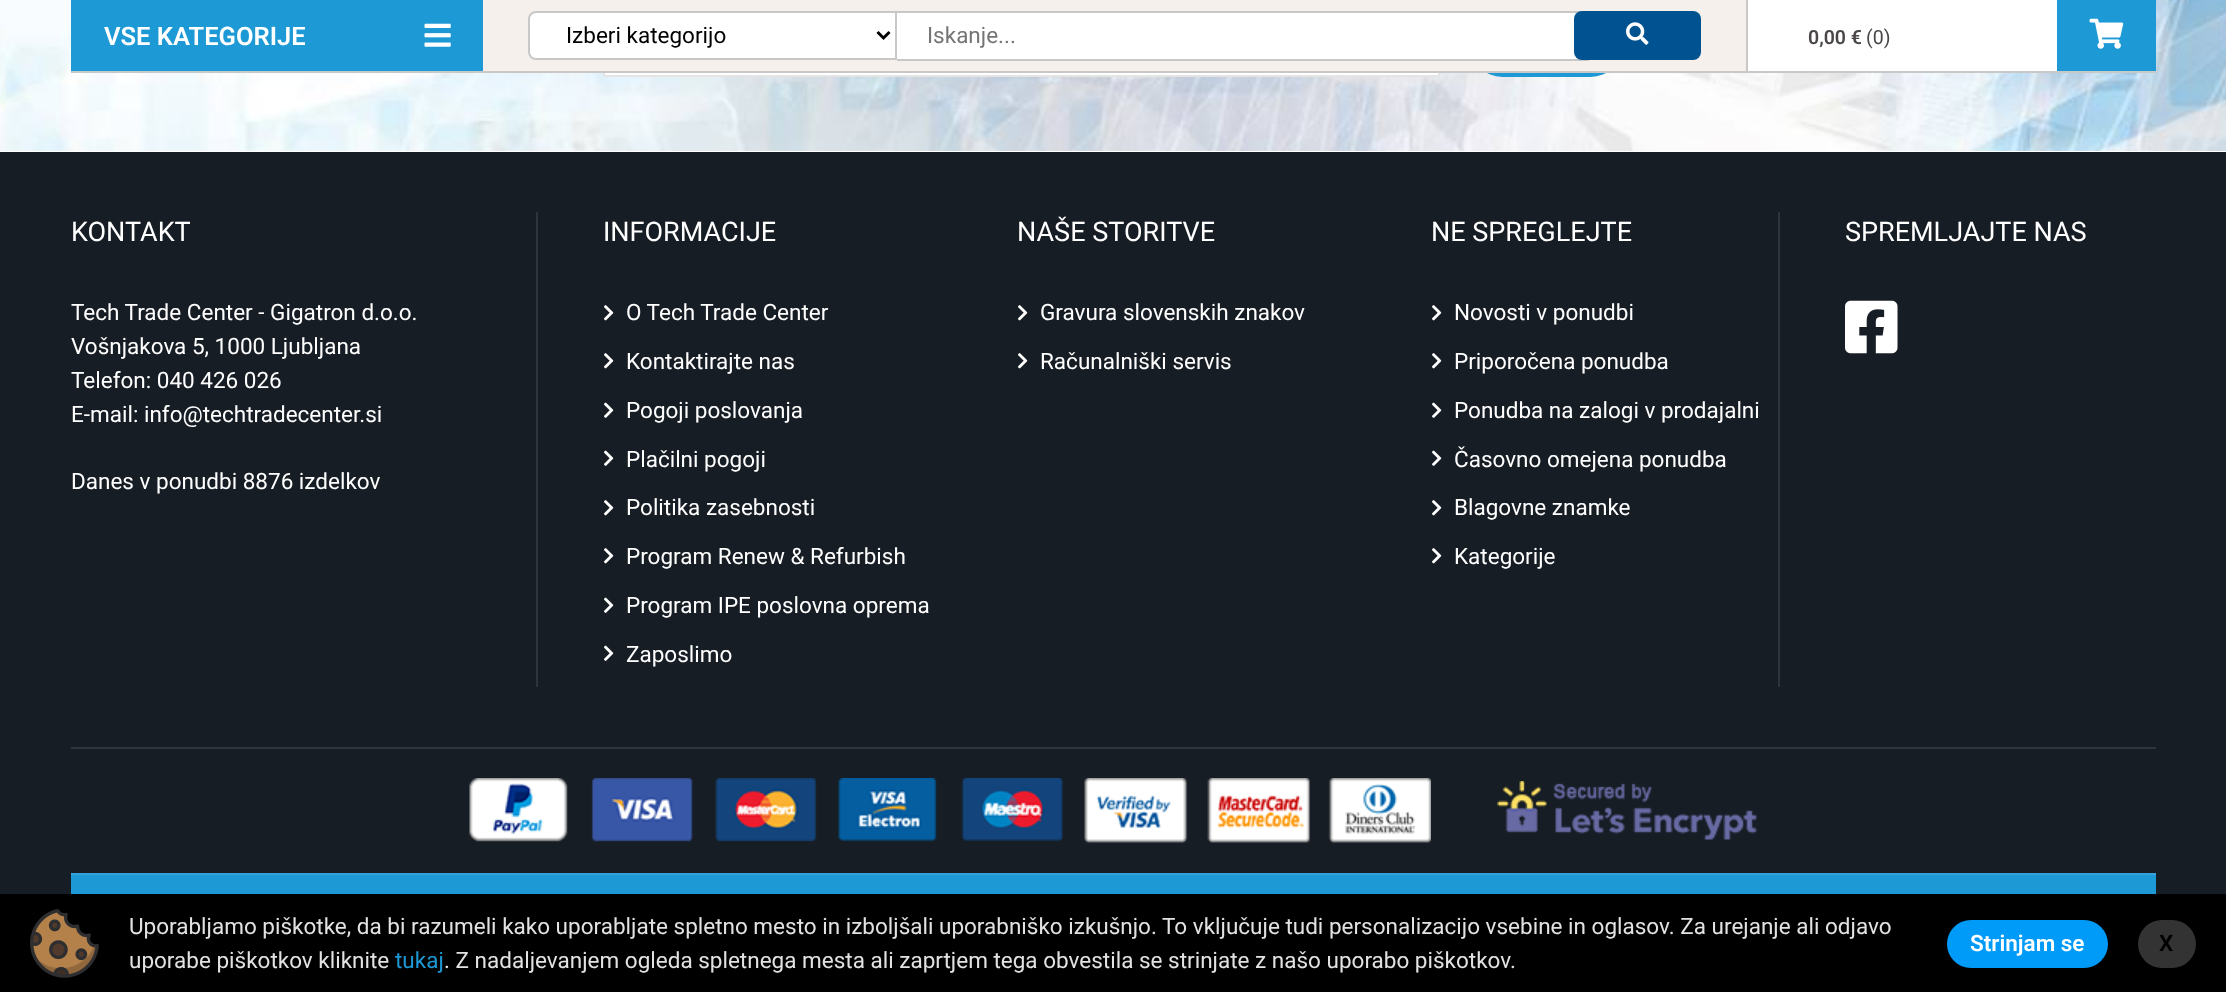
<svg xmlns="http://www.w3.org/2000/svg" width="2226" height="992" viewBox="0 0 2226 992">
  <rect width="100%" height="100%" fill="rgb(255,255,255)"/>
  <image x="0" y="0" width="2226" height="151" href="pic1.png"/>
  <rect x="605" y="73" width="833" height="2" fill="rgb(255,255,255)"/>
  <rect x="604" y="13" width="835" height="63" fill="none" stroke="rgb(228,228,228)" stroke-width="2"/>
  <rect x="1470" y="12" width="153" height="65" rx="32.5" fill="rgb(29,153,214)"/>
  <rect x="71" y="0" width="412" height="71" fill="rgb(29,153,214)"/>
  <text x="104" y="45" font-family="Roboto" font-size="25.5" font-weight="600" fill="rgb(255,255,255)">VSE KATEGORIJE</text>
  <image x="424" y="23" width="27" height="24" href="pic2.png"/>
  <rect x="483" y="0" width="1263" height="71" fill="rgb(245,240,236)"/>
  <rect x="71" y="71" width="2085" height="2" fill="rgb(200,200,200)"/>
  <path d="M536 12H896V59H536C532 59 529 56 529 52V19C529 15 532 12 536 12Z" fill="rgb(255,255,255)" stroke="rgb(200,200,200)" stroke-width="2"/>
  <path d="M877.5 32L883.5 38L889.5 32" fill="none" stroke="rgb(0,0,0)" stroke-width="3"/>
  <text x="566" y="43" font-family="Roboto" font-size="22.5" fill="rgb(0,0,0)">Izberi kategorijo</text>
  <rect x="897" y="13" width="682" height="46" fill="rgb(255,255,255)"/>
  <rect x="897" y="11" width="692" height="2" fill="rgb(200,200,200)"/>
  <rect x="897" y="59" width="692" height="2" fill="rgb(200,200,200)"/>
  <text x="927" y="43" font-family="Roboto" font-size="22.5" fill="rgb(117,117,117)">Iskanje...</text>
  <rect x="1574" y="11" width="127" height="49" rx="8" fill="rgb(0,82,144)"/>
  <image x="1626" y="22" width="23" height="23" href="pic3.png"/>
  <rect x="1748" y="0" width="309" height="71" fill="rgb(255,255,255)"/>
  <rect x="1746" y="0" width="2" height="72" fill="rgb(200,200,200)"/>
  <text x="1808" y="44" font-family="Roboto" font-size="19.5" font-weight="600" fill="rgb(75,71,72)">0,00 €</text>
  <text x="1866" y="44" font-family="Roboto" font-size="19.5" fill="rgb(75,71,72)">(0)</text>
  <rect x="2057" y="0" width="99" height="71" fill="rgb(29,153,214)"/>
  <image x="2089" y="18" width="35" height="31" href="pic4.png"/>
  <rect x="0" y="152" width="2226" height="742" fill="rgb(23,29,36)"/>
  <text x="71" y="241" font-family="Roboto" font-size="27" fill="rgb(255,255,255)">KONTAKT</text>
  <g font-family="Roboto" font-size="22.5" fill="rgb(255,255,255)">
    <text>
      <tspan x="71" y="320">Tech Trade Center - Gigatron d.o.o.</tspan>
      <tspan x="71" y="354">Vošnjakova 5, 1000 Ljubljana</tspan>
      <tspan x="71" y="388">Telefon: 040 426 026</tspan>
      <tspan x="71" y="422">E-mail: info@techtradecenter.si</tspan>
    </text>
    <text x="71" y="489">Danes v ponudbi 8876 izdelkov</text>
  </g>
  <rect x="536" y="212" width="2" height="475" fill="rgb(46,52,58)"/>
  <text x="603" y="241" font-family="Roboto" font-size="27" fill="rgb(255,255,255)">INFORMACIJE</text>
  <image x="604" y="305" width="10" height="16" href="pic5.png"/>
  <text x="626" y="320" font-family="Roboto" font-size="22.5" fill="rgb(255,255,255)">O Tech Trade Center</text>
  <image x="604" y="353" width="10" height="16" href="pic5.png"/>
  <text x="626" y="369" font-family="Roboto" font-size="22.5" fill="rgb(255,255,255)">Kontaktirajte nas</text>
  <image x="604" y="402" width="10" height="16" href="pic6.png"/>
  <text x="626" y="418" font-family="Roboto" font-size="22.5" fill="rgb(255,255,255)">Pogoji poslovanja</text>
  <image x="604" y="450" width="10" height="16" href="pic6.png"/>
  <text x="626" y="467" font-family="Roboto" font-size="22.5" fill="rgb(255,255,255)">Plačilni pogoji</text>
  <image x="604" y="500" width="10" height="16" href="pic5.png"/>
  <text x="626" y="515" font-family="Roboto" font-size="22.5" fill="rgb(255,255,255)">Politika zasebnosti</text>
  <image x="604" y="548" width="10" height="16" href="pic5.png"/>
  <text x="626" y="564" font-family="Roboto" font-size="22.5" fill="rgb(255,255,255)">Program Renew &amp; Refurbish</text>
  <image x="604" y="597" width="10" height="16" href="pic6.png"/>
  <text x="626" y="613" font-family="Roboto" font-size="22.5" fill="rgb(255,255,255)">Program IPE poslovna oprema</text>
  <image x="604" y="645" width="10" height="16" href="pic6.png"/>
  <text x="626" y="662" font-family="Roboto" font-size="22.5" fill="rgb(255,255,255)">Zaposlimo</text>
  <text x="1017" y="241" font-family="Roboto" font-size="27" fill="rgb(255,255,255)">NAŠE STORITVE</text>
  <image x="1018" y="305" width="10" height="16" href="pic5.png"/>
  <text x="1040" y="320" font-family="Roboto" font-size="22.5" fill="rgb(255,255,255)">Gravura slovenskih znakov</text>
  <image x="1018" y="353" width="10" height="16" href="pic5.png"/>
  <text x="1040" y="369" font-family="Roboto" font-size="22.5" fill="rgb(255,255,255)">Računalniški servis</text>
  <text x="1431" y="241" font-family="Roboto" font-size="27" fill="rgb(255,255,255)">NE SPREGLEJTE</text>
  <image x="1432" y="305" width="10" height="16" href="pic5.png"/>
  <text x="1454" y="320" font-family="Roboto" font-size="22.5" fill="rgb(255,255,255)">Novosti v ponudbi</text>
  <image x="1432" y="353" width="10" height="16" href="pic5.png"/>
  <text x="1454" y="369" font-family="Roboto" font-size="22.5" fill="rgb(255,255,255)">Priporočena ponudba</text>
  <image x="1432" y="402" width="10" height="16" href="pic6.png"/>
  <text x="1454" y="418" font-family="Roboto" font-size="22.5" fill="rgb(255,255,255)">Ponudba na zalogi v prodajalni</text>
  <image x="1432" y="450" width="10" height="16" href="pic6.png"/>
  <text x="1454" y="467" font-family="Roboto" font-size="22.5" fill="rgb(255,255,255)">Časovno omejena ponudba</text>
  <image x="1432" y="500" width="10" height="16" href="pic5.png"/>
  <text x="1454" y="515" font-family="Roboto" font-size="22.5" fill="rgb(255,255,255)">Blagovne znamke</text>
  <image x="1432" y="548" width="10" height="16" href="pic5.png"/>
  <text x="1454" y="564" font-family="Roboto" font-size="22.5" fill="rgb(255,255,255)">Kategorije</text>
  <rect x="1778" y="212" width="2" height="475" fill="rgb(46,52,58)"/>
  <text x="1845" y="241" font-family="Roboto" font-size="27" fill="rgb(255,255,255)">SPREMLJAJTE NAS</text>
  <image x="1845" y="300" width="53" height="54" href="pic7.png"/>
  <rect x="71" y="747" width="2085" height="2" fill="rgb(46,52,58)"/>
  <image x="469" y="778" width="962" height="65" href="pic8.png"/>
  <image x="1497" y="781" width="260" height="59" href="pic9.png"/>
  <rect x="71" y="875" width="2085" height="19" fill="rgb(29,153,214)"/>
  <rect x="71" y="873" width="2085" height="2" fill="rgb(52,163,218)"/>
  <rect x="0" y="894" width="2226" height="98" fill="rgb(0,0,0)"/>
  <image x="30" y="909" width="69" height="69" href="pic10.png"/>
  <g font-family="Roboto" font-size="22.5" fill="rgb(226,226,226)">
    <text>
      <tspan x="129" y="934">Uporabljamo piškotke, da bi razumeli kako uporabljate spletno mesto in izboljšali uporabniško izkušnjo. To vključuje tudi personalizacijo vsebine in oglasov. Za urejanje ali odjavo</tspan>
      <tspan x="129" y="968">uporabe piškotkov kliknite</tspan>
    </text>
  </g>
  <text x="395" y="968" font-family="Roboto" font-size="22.5" fill="rgb(29,153,214)">tukaj</text>
  <text x="444" y="968" font-family="Roboto" font-size="22.5" fill="rgb(226,226,226)">. Z nadaljevanjem ogleda spletnega mesta ali zaprtjem tega obvestila se strinjate z našo uporabo piškotkov.</text>
  <rect x="1947" y="920" width="161" height="48" rx="24" fill="rgb(0,155,248)"/>
  <text x="1970" y="951" font-family="Roboto" font-size="22.5" font-weight="600" fill="rgb(255,255,255)">Strinjam se</text>
  <rect x="2138" y="920" width="58" height="48" rx="24" fill="rgb(51,51,51)"/>
  <text x="2159" y="951" font-family="Roboto" font-size="22.5" font-weight="600" fill="rgb(0,0,0)">X</text>
</svg>
